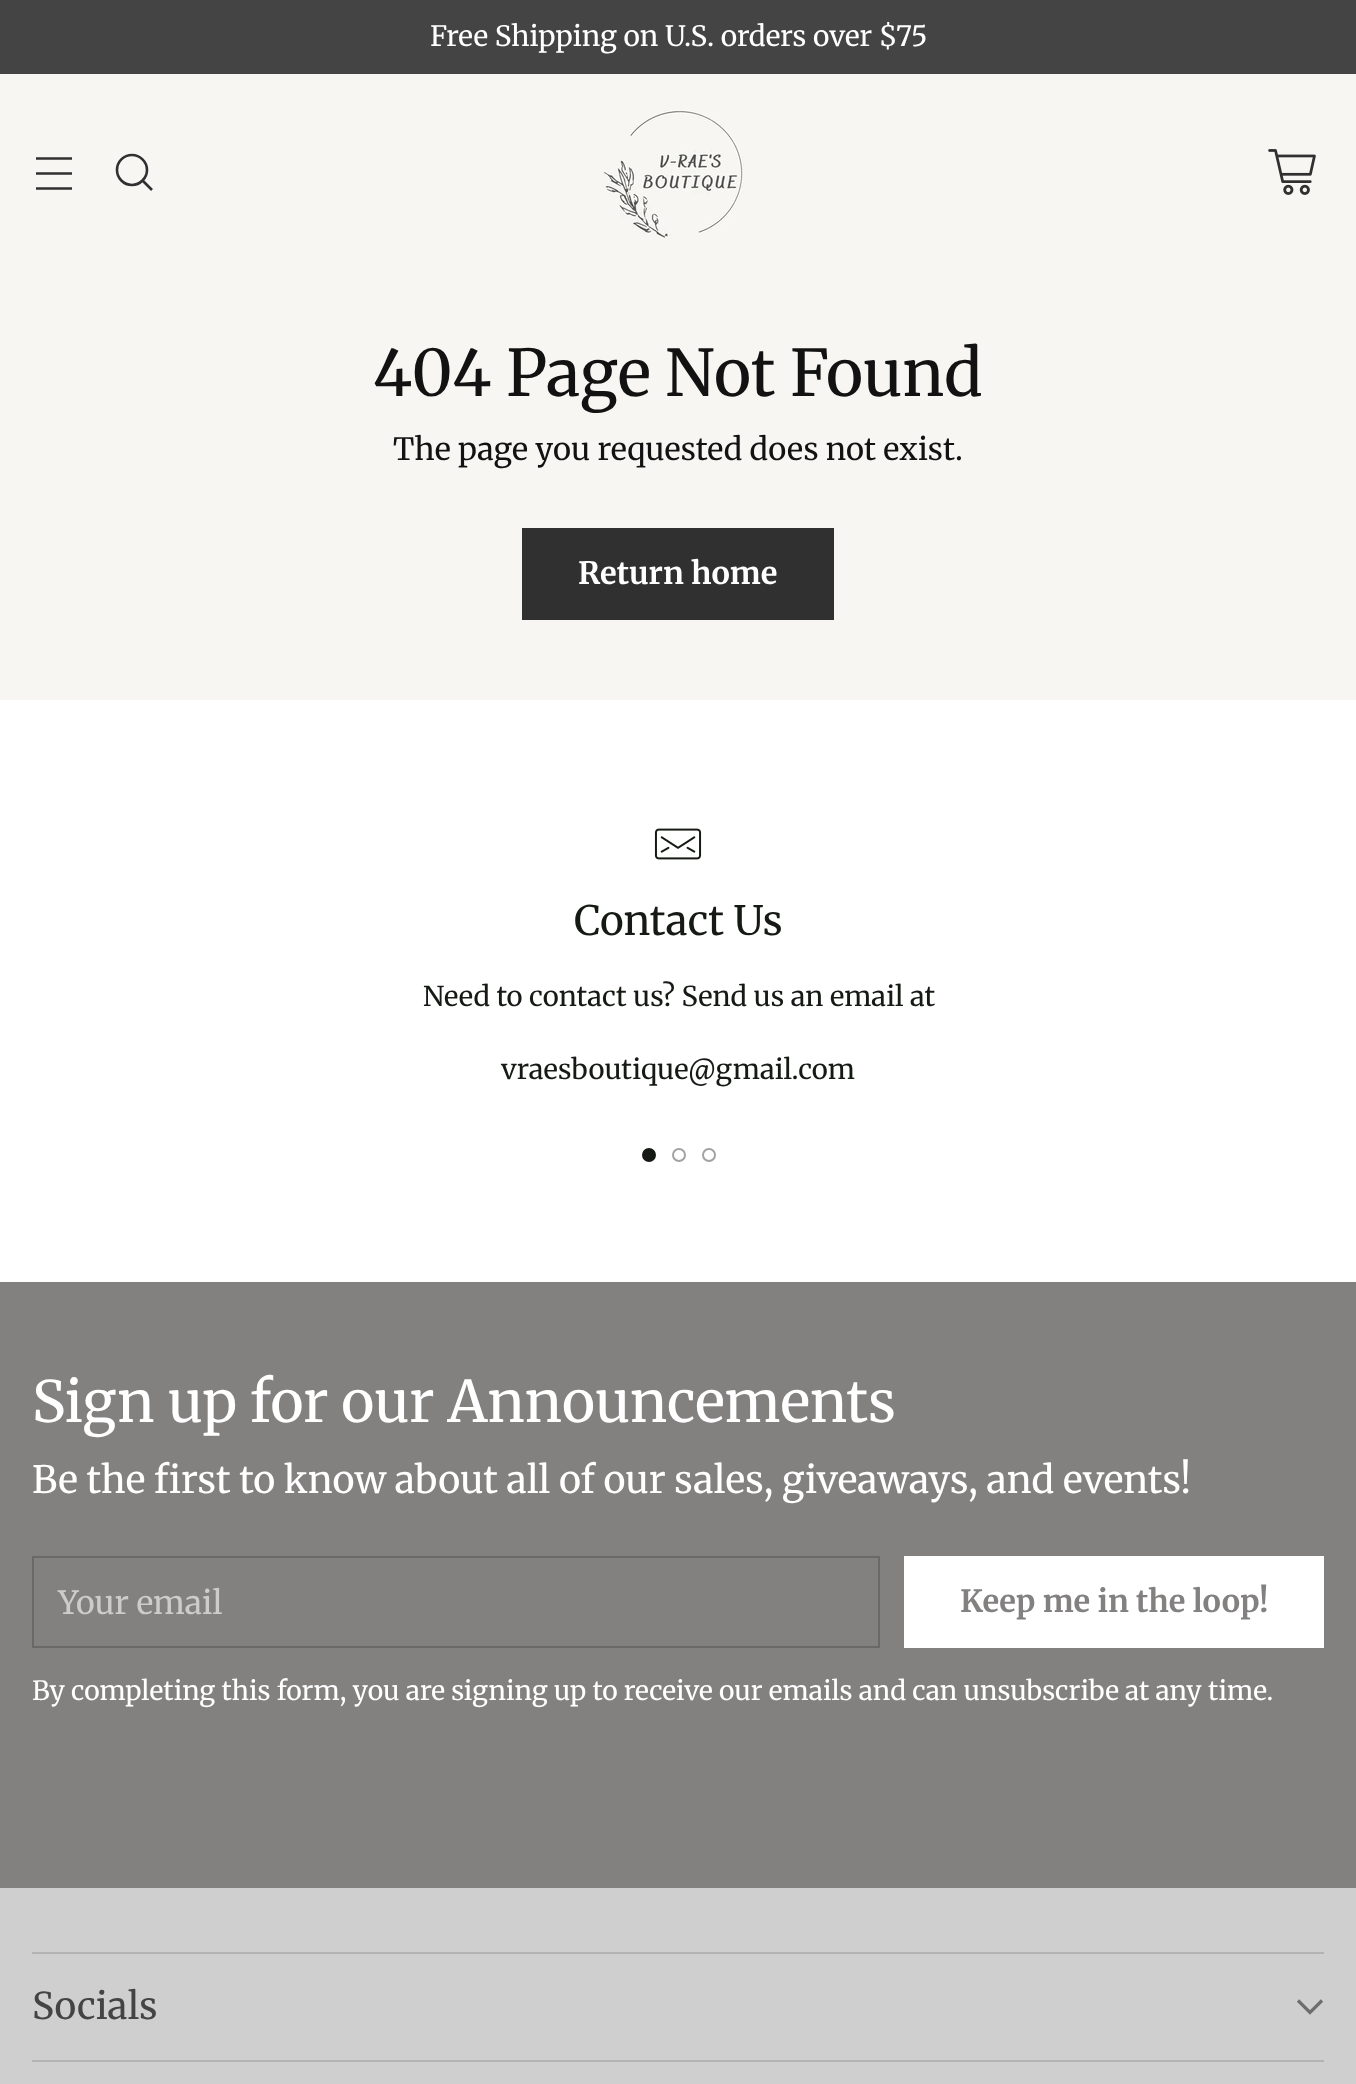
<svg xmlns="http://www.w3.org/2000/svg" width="1356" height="2084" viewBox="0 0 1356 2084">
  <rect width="100%" height="100%" fill="rgb(248,246,243)"/>
  <rect x="0" y="0" width="1356" height="74" fill="rgb(68,68,68)"/>
  <text x="430" y="46" font-family="'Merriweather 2'" font-size="28" fill="rgb(255,255,255)">Free Shipping on U.S. orders over $75</text>
  <path d="M36 173.5H72M36 158.5H72M36 188.5H72" fill="none" stroke="rgb(48,48,48)" stroke-width="2.6"/>
  <path d="M132 185C140 185 147 178 147 170C147 161.5 140 155 132 155C123.5 155 117 161.5 117 170C117 178 123.5 185 132 185Z" fill="none" stroke="rgb(48,48,48)" stroke-width="2.6" stroke-linecap="round"/>
  <path d="M142.5 180.5L152 190" fill="none" stroke="rgb(48,48,48)" stroke-width="2.6"/>
  <image x="604" y="110" width="140" height="128" href="pic1.png"/>
  <image x="1268" y="149" width="48" height="46" href="pic2.png"/>
  <text x="373" y="396" font-family="Merriweather" font-size="64.25" fill="rgb(18,18,18)">404 Page Not Found</text>
  <text x="393" y="460" font-family="'Merriweather 2'" font-size="30.75" fill="rgb(18,18,18)">The page you requested does not exist.</text>
  <rect x="522" y="528" width="312" height="92" fill="rgb(48,48,48)"/>
  <text x="578" y="584" font-family="Merriweather" font-size="30.75" font-weight="bold" fill="rgb(255,255,255)">Return home</text>
  <rect x="0" y="700" width="1356" height="582" fill="rgb(255,255,255)"/>
  <image x="654" y="828" width="48" height="32" href="pic3.png"/>
  <text x="574" y="935" font-family="'Merriweather 2'" font-size="40.5" fill="rgb(22,26,21)">Contact Us</text>
  <g font-family="'Merriweather 2'" font-size="27.4" fill="rgb(22,26,21)">
    <text x="423" y="1006">Need to contact us? Send us an email at</text>
    <text x="501" y="1079">vraesboutique@gmail.com</text>
  </g>
  <circle cx="649" cy="1155" r="6" fill="rgb(22,26,21)" stroke="rgb(22,26,21)" stroke-width="2"/>
  <circle cx="679" cy="1155" r="6" fill="none" stroke="rgb(162,163,161)" stroke-width="2"/>
  <circle cx="709" cy="1155" r="6" fill="none" stroke="rgb(162,163,161)" stroke-width="2"/>
  <rect x="0" y="1282" width="1356" height="606" fill="rgb(131,128,128)"/>
  <text x="32" y="1422" font-family="'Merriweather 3'" font-size="57" fill="rgb(255,255,255)">Sign up for our Announcements</text>
  <text x="32" y="1493" word-spacing="-0.25" font-family="'Merriweather 2'" font-size="37.6" fill="rgb(255,255,255)">Be the first to know about all of our sales, giveaways, and events!</text>
  <rect x="33" y="1557" width="846" height="90" fill="none" stroke="rgb(106,104,104)" stroke-width="2"/>
  <text x="58" y="1614" font-family="'Merriweather 2'" font-size="32" fill="rgb(205,204,204)">Your email</text>
  <rect x="904" y="1556" width="420" height="92" fill="rgb(255,255,255)"/>
  <text x="960" y="1612" font-family="Merriweather" font-size="30.75" font-weight="bold" fill="rgb(131,128,128)">Keep me in the loop!</text>
  <text x="32" y="1700" word-spacing="-0.1" font-family="'Merriweather 2'" font-size="26.4" fill="rgb(255,255,255)">By completing this form, you are signing up to receive our emails and can unsubscribe at any time.</text>
  <rect x="0" y="1888" width="1356" height="196" fill="rgb(207,207,207)"/>
  <rect x="32" y="1952" width="1292" height="2" fill="rgb(179,179,179)"/>
  <rect x="32" y="2060" width="1292" height="2" fill="rgb(179,179,179)"/>
  <text x="32" y="2019" font-family="'Merriweather 2'" font-size="37" fill="rgb(68,68,68)">Socials</text>
  <path d="M1298 2000.5L1310 2012.5L1322 2000.5" fill="none" stroke="rgb(110,110,110)" stroke-width="3.2"/>
</svg>
